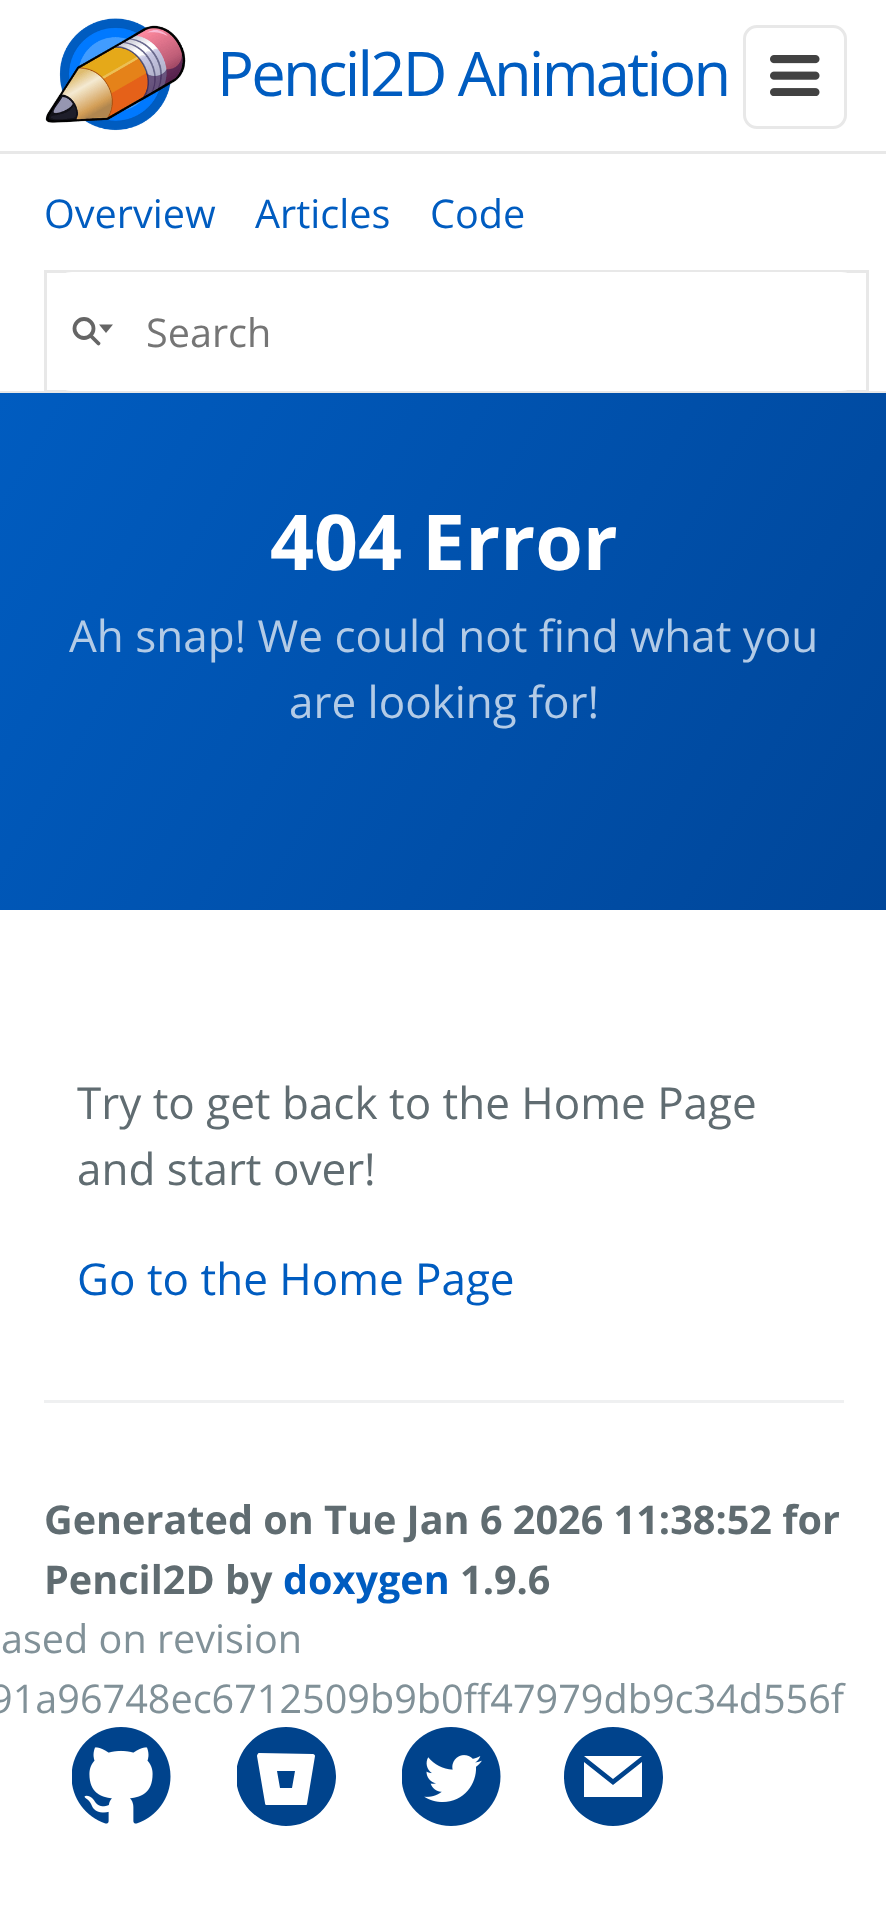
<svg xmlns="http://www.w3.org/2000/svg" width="886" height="1932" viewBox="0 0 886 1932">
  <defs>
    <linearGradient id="g1" gradientUnits="userSpaceOnUse" x1="-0.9" y1="395" x2="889" y2="909"><stop offset="0" stop-color="rgb(0,92,192)"/><stop offset="1" stop-color="rgb(0,70,153)"/></linearGradient>
    <clipPath id="clip1"><rect x="237" y="1727" width="99" height="99"/></clipPath>
  </defs>
  <rect width="100%" height="100%" fill="rgb(255,255,255)"/>
  <rect x="0" y="151" width="886" height="3" fill="rgb(232,232,232)"/>
  <image x="45" y="18" width="141" height="113" href="pic1.png"/>
  <text x="217" y="96" font-family="Open Sans" font-size="61.5" letter-spacing="-2.75" fill="rgb(0,92,192)">Pencil2D Animation</text>
  <rect x="744.5" y="26.5" width="101" height="101" rx="12.5" fill="none" stroke="rgb(232,232,232)" stroke-width="3"/>
  <image x="770" y="55" width="50" height="41" href="pic2.png"/>
  <rect x="0" y="391" width="886" height="2" fill="rgb(232,232,232)"/>
  <g font-family="Open Sans" font-size="39.6" fill="rgb(0,92,192)">
    <text x="44" y="228">Overview</text>
    <text x="255" y="228">Articles</text>
    <text x="430" y="228">Code</text>
  </g>
  <rect x="45.5" y="271.5" width="822" height="120" fill="none" stroke="rgb(232,232,232)" stroke-width="3"/>
  <rect x="47" y="272" width="819" height="119" rx="25" fill="rgb(255,255,255)"/>
  <circle cx="84" cy="328.5" r="9.5" fill="none" stroke="rgb(101,101,101)" stroke-width="3.8"/>
  <path d="M99 324.5L106 333L113 324.5Z" fill="rgb(101,101,101)"/>
  <path d="M91 336L98.5 343.5" fill="none" stroke="rgb(101,101,101)" stroke-width="3.8" stroke-linecap="round"/>
  <text x="146" y="347" font-family="Open Sans" font-size="39.6" fill="rgb(117,117,117)">Search</text>
  <rect x="0" y="393" width="886" height="517" fill="url(#g1)"/>
  <text x="270" y="570" font-family="Open Sans" font-size="77" font-weight="bold" fill="rgb(255,255,255)">404 Error</text>
  <g font-family="Open Sans" font-size="44" fill="rgb(179,203,230)">
    <text x="69" y="652">Ah snap! We could not find what you</text>
    <text x="289" y="718">are looking for!</text>
  </g>
  <g font-family="Open Sans" font-size="44" fill="rgb(96,108,113)">
    <text>
      <tspan x="77" y="1119">Try to get back to the Home Page</tspan>
      <tspan x="77" y="1185">and start over!</tspan>
    </text>
  </g>
  <text x="77" y="1295" font-family="Open Sans" font-size="44" fill="rgb(0,92,192)">Go to the Home Page</text>
  <rect x="44" y="1400" width="800" height="3" fill="rgb(239,240,241)"/>
  <g font-family="Open Sans" font-size="39.6" font-weight="bold" fill="rgb(96,108,113)">
    <text>
      <tspan x="44" y="1534">Generated on Tue Jan 6 2026 11:38:52 for</tspan>
      <tspan x="44" y="1594">Pencil2D by</tspan>
    </text>
  </g>
  <text x="283" y="1594" font-family="Open Sans" font-size="39.6" font-weight="bold" fill="rgb(0,92,192)">doxygen</text>
  <text x="460" y="1594" font-family="Open Sans" font-size="39.6" font-weight="bold" fill="rgb(96,108,113)">1.9.6</text>
  <g font-family="Open Sans" font-size="39.6" fill="rgb(129,145,152)">
    <text x="1" y="1653">ased on revision</text>
    <text x="-10" y="1713">91a96748ec6712509b9b0ff47979db9c34d556f</text>
  </g>
  <image x="72" y="1727" width="99" height="97" href="pic3.png"/>
  <g clip-path="url(#clip1)">
    <path d="M286 1727C259 1727 236 1749 236 1776C236 1804 259 1826 286 1826C313 1826 336 1804 336 1776C336 1749 313 1727 286 1727ZM259 1753L313 1754C314 1754 315 1755 315 1756L307 1804C307 1805 306 1805 305 1805H267C266 1805 265 1805 265 1803L257 1756C257 1755 258 1753 259 1753ZM292 1788H280L277 1771H295Z" fill="rgb(0,67,140)"/>
  </g>
  <image x="402" y="1727" width="99" height="99" href="pic4.png"/>
  <path d="M613 1727C586 1727 564 1749 564 1777C564 1804 586 1826 613 1826C641 1826 663 1804 663 1777C663 1749 641 1727 613 1727ZM642 1756L613 1779L584 1756ZM642 1797H584V1762L613 1785L642 1762Z" fill="rgb(0,67,140)"/>
</svg>
